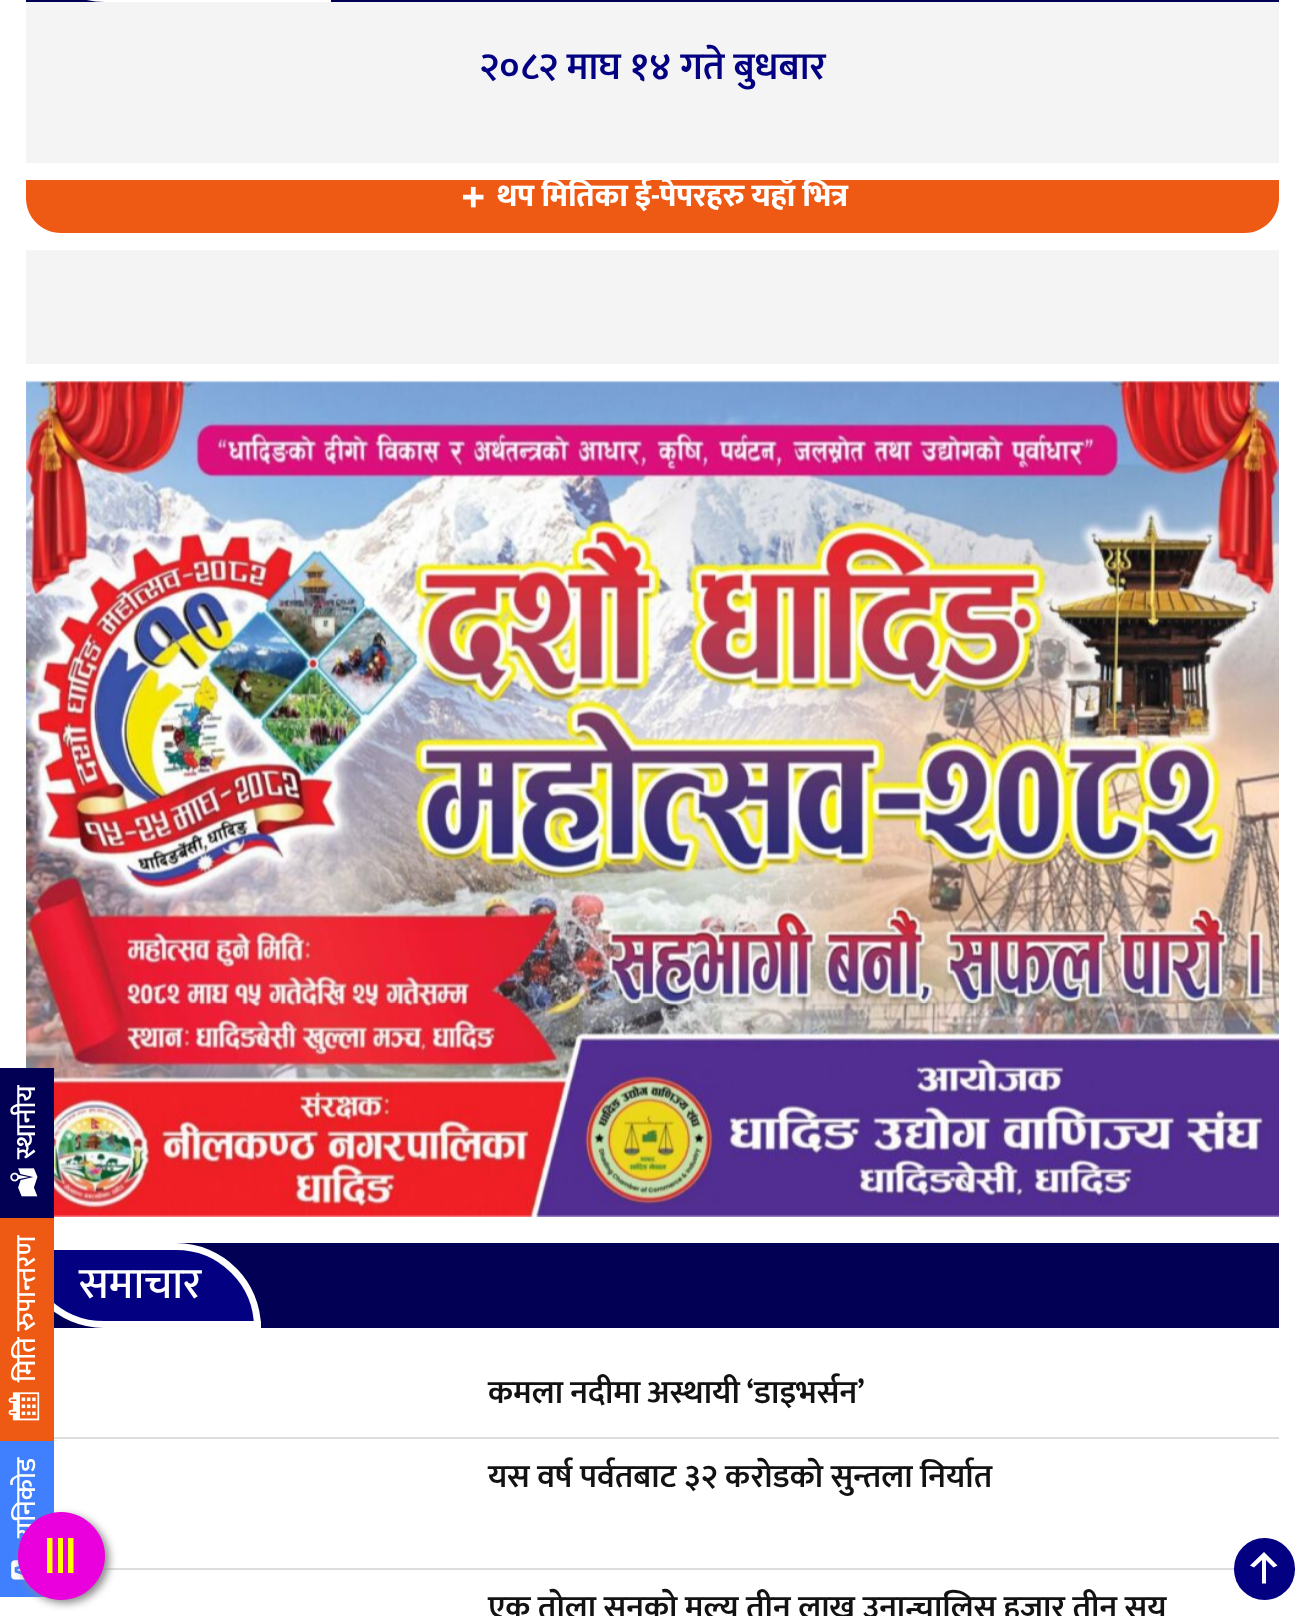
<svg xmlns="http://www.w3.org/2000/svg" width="1305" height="1616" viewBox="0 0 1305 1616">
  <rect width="100%" height="100%" fill="rgb(255,255,255)"/>
  <image x="26" y="380" width="1253" height="837" href="pic5.png"/>
  <rect x="0" y="1068" width="54" height="150" fill="rgb(2,0,84)"/>
  <text x="35" y="1159" transform="rotate(-90 35 1159)" font-family="Mukta" font-size="28" font-weight="500" fill="rgb(255,255,255)">स्थानीय</text>
  <image x="10" y="1168" width="28" height="29" href="pic1.png"/>
  <rect x="54" y="1243" width="1225" height="85" fill="rgb(2,0,84)"/>
  <path d="M22.5 1246.5H176C221 1246.5 257.5 1283 257.5 1328V1324.5H104C59 1324.5 22.5 1288 22.5 1243Z" fill="rgb(3,0,130)" stroke="rgb(255,255,255)" stroke-width="7"/>
  <rect x="0" y="1218" width="54" height="223" fill="rgb(238,89,19)"/>
  <text x="35" y="1382" transform="rotate(-90 35 1382)" font-family="Mukta" font-size="28" font-weight="500" fill="rgb(255,255,255)">मिति रुपान्तरण</text>
  <image x="8" y="1392" width="32" height="29" href="pic2.png"/>
  <rect x="0" y="1441" width="54" height="156" fill="rgb(64,128,255)"/>
  <text x="35" y="1538" transform="rotate(-90 35 1538)" font-family="Mukta" font-size="28" font-weight="500" fill="rgb(255,255,255)">युनिकोड</text>
  <image x="11" y="1560" width="14" height="20" href="pic3.png"/>
  <rect x="26" y="0" width="1253" height="2" fill="rgb(2,0,84)"/>
  <path d="M22.5-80.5H245C290.5-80.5 327.5-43.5 327.5 2V-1.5H105C59.5-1.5 22.5-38.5 22.5-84Z" fill="none" stroke="rgb(255,255,255)" stroke-width="7"/>
  <rect x="26" y="2" width="1253" height="161" fill="rgb(244,244,244)"/>
  <path d="M26 163H1279V198C1279 217.5 1263.5 233 1244 233H61C41.5 233 26 217.5 26 198Z" fill="rgb(238,89,19)"/>
  <rect x="26" y="163" width="1253" height="17" fill="rgb(255,255,255)"/>
  <text x="479" y="79" font-family="Mukta" font-size="38.5" font-weight="600" fill="rgb(3,0,130)">२०८२ माघ १४ गते बुधबार</text>
  <image x="463" y="186" width="21" height="22" href="pic4.png"/>
  <text x="497" y="206" font-family="Mukta" font-size="31.5" font-weight="800" fill="rgb(255,255,255)">थप मितिका ई-पेपरहरु यहाँ भित्र</text>
  <rect x="26" y="250" width="1253" height="114" fill="rgb(244,244,244)"/>
  <text x="79" y="1298" font-family="Mukta" font-size="44" font-weight="500" fill="rgb(255,255,255)">समाचार</text>
  <rect x="54" y="1437" width="1225" height="2" fill="rgb(221,221,221)"/>
  <text x="488" y="1403" word-spacing="-0.5" font-family="Mukta" font-size="32.75" font-weight="600" fill="rgb(18,18,18)">कमला नदीमा अस्थायी ‘डाइभर्सन’</text>
  <rect x="102" y="1568" width="1133" height="2" fill="rgb(221,221,221)"/>
  <g font-family="Mukta" font-size="32.75" font-weight="600" fill="rgb(18,18,18)">
    <text x="488" y="1487">यस वर्ष पर्वतबाट ३२ करोडको सुन्तला निर्यात</text>
    <text x="488" y="1618">एक तोला सुनको मूल्य तीन लाख उनान्चालिस हजार तीन सय</text>
  </g>
  <rect x="21" y="1516" width="88" height="87" rx="43.5" fill="rgb(136,136,136)" filter="blur(4.5px)"/>
  <path d="M18 1556C18 1532 37 1512 61 1512C85 1512 105 1532 105 1556C105 1580 85 1600 61 1600C37 1600 18 1580 18 1556Z" fill="rgb(233,0,220)"/>
  <path d="M52.5 1538H47V1573H52.5ZM63 1538H58V1573H63ZM73.5 1538H68V1573H73.5Z" fill="rgb(255,255,0)"/>
  <rect x="1234" y="1538" width="61" height="62" rx="30.5" fill="rgb(3,0,130)"/>
  <path d="M1266 1583.5H1262V1560L1254 1567.5L1250 1565.5L1264 1552L1277.5 1565.5L1273.5 1567.5L1266 1560Z" fill="rgb(255,255,255)"/>
</svg>
